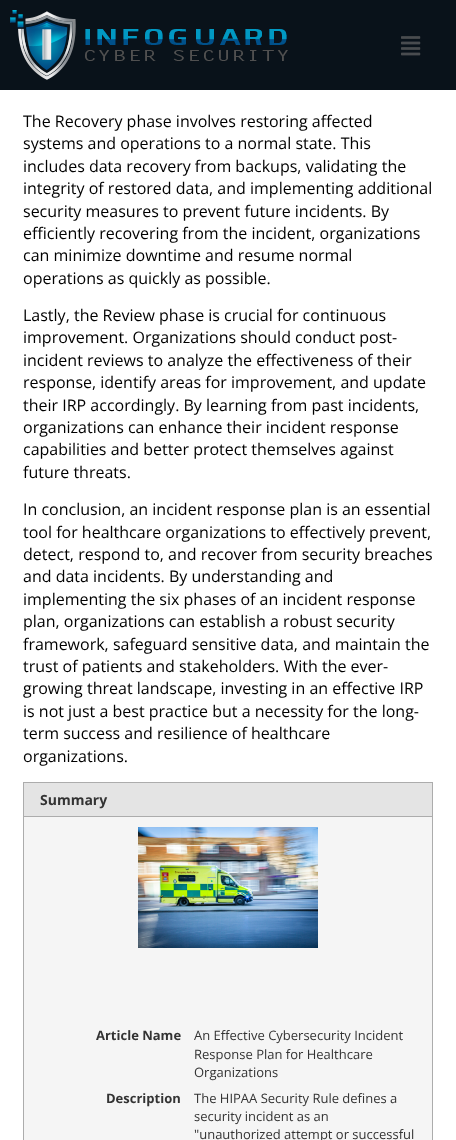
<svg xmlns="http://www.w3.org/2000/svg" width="456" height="1140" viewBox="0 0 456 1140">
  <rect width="100%" height="100%" fill="rgb(255,255,255)"/>
  <rect x="0" y="0" width="456" height="90" fill="rgb(9,18,26)"/>
  <image x="10" y="10" width="278" height="70" href="pic1.png"/>
  <image x="401" y="36" width="20" height="20" href="pic2.png"/>
  <g font-family="Open Sans" font-size="16" fill="rgb(0,0,0)">
    <text>
      <tspan x="23" y="127">The Recovery phase involves restoring affected</tspan>
      <tspan x="23" y="149">systems and operations to a normal state. This</tspan>
      <tspan x="23" y="172">includes data recovery from backups, validating the</tspan>
      <tspan x="23" y="194">integrity of restored data, and implementing additional</tspan>
      <tspan x="23" y="217">security measures to prevent future incidents. By</tspan>
      <tspan x="23" y="239">efficiently recovering from the incident, organizations</tspan>
      <tspan x="23" y="261">can minimize downtime and resume normal</tspan>
      <tspan x="23" y="284">operations as quickly as possible.</tspan>
    </text>
    <text>
      <tspan x="23" y="321">Lastly, the Review phase is crucial for continuous</tspan>
      <tspan x="23" y="343">improvement. Organizations should conduct post-</tspan>
      <tspan x="23" y="366">incident reviews to analyze the effectiveness of their</tspan>
      <tspan x="23" y="388">response, identify areas for improvement, and update</tspan>
      <tspan x="23" y="411">their IRP accordingly. By learning from past incidents,</tspan>
      <tspan x="23" y="433">organizations can enhance their incident response</tspan>
      <tspan x="23" y="455">capabilities and better protect themselves against</tspan>
      <tspan x="23" y="478">future threats.</tspan>
    </text>
    <text>
      <tspan x="23" y="515">In conclusion, an incident response plan is an essential</tspan>
      <tspan x="23" y="538">tool for healthcare organizations to effectively prevent,</tspan>
      <tspan x="23" y="560">detect, respond to, and recover from security breaches</tspan>
      <tspan x="23" y="582">and data incidents. By understanding and</tspan>
      <tspan x="23" y="605">implementing the six phases of an incident response</tspan>
      <tspan x="23" y="627">plan, organizations can establish a robust security</tspan>
      <tspan x="23" y="650">framework, safeguard sensitive data, and maintain the</tspan>
      <tspan x="23" y="672">trust of patients and stakeholders. With the ever-</tspan>
      <tspan x="23" y="694">growing threat landscape, investing in an effective IRP</tspan>
      <tspan x="23" y="717">is not just a best practice but a necessity for the long-</tspan>
      <tspan x="23" y="739">term success and resilience of healthcare</tspan>
      <tspan x="23" y="762">organizations.</tspan>
    </text>
  </g>
  <rect x="24" y="817" width="408" height="323" fill="rgb(245,245,245)"/>
  <rect x="23.5" y="782.5" width="409" height="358" fill="none" stroke="rgb(172,172,172)"/>
  <rect x="24" y="783" width="408" height="33" fill="rgb(228,228,228)"/>
  <rect x="24" y="816" width="408" height="1" fill="rgb(172,172,172)"/>
  <text x="40" y="805" font-family="Open Sans" font-size="14" font-weight="bold" fill="rgb(51,51,51)">Summary</text>
  <image x="138" y="827" width="180" height="121" href="pic3.png"/>
  <text x="96" y="1040" font-family="Open Sans" font-size="13" font-weight="bold" fill="rgb(51,51,51)">Article Name</text>
  <g font-family="Open Sans" font-size="13" fill="rgb(51,51,51)">
    <text>
      <tspan x="194" y="1040">An Effective Cybersecurity Incident</tspan>
      <tspan x="194" y="1059">Response Plan for Healthcare</tspan>
      <tspan x="194" y="1077">Organizations</tspan>
    </text>
  </g>
  <text x="106" y="1103" font-family="Open Sans" font-size="13" font-weight="bold" fill="rgb(51,51,51)">Description</text>
  <g font-family="Open Sans" font-size="13" fill="rgb(51,51,51)">
    <text>
      <tspan x="194" y="1103">The HIPAA Security Rule defines a</tspan>
      <tspan x="194" y="1121">security incident as an</tspan>
      <tspan x="194" y="1139">"unauthorized attempt or successful</tspan>
    </text>
  </g>
</svg>
